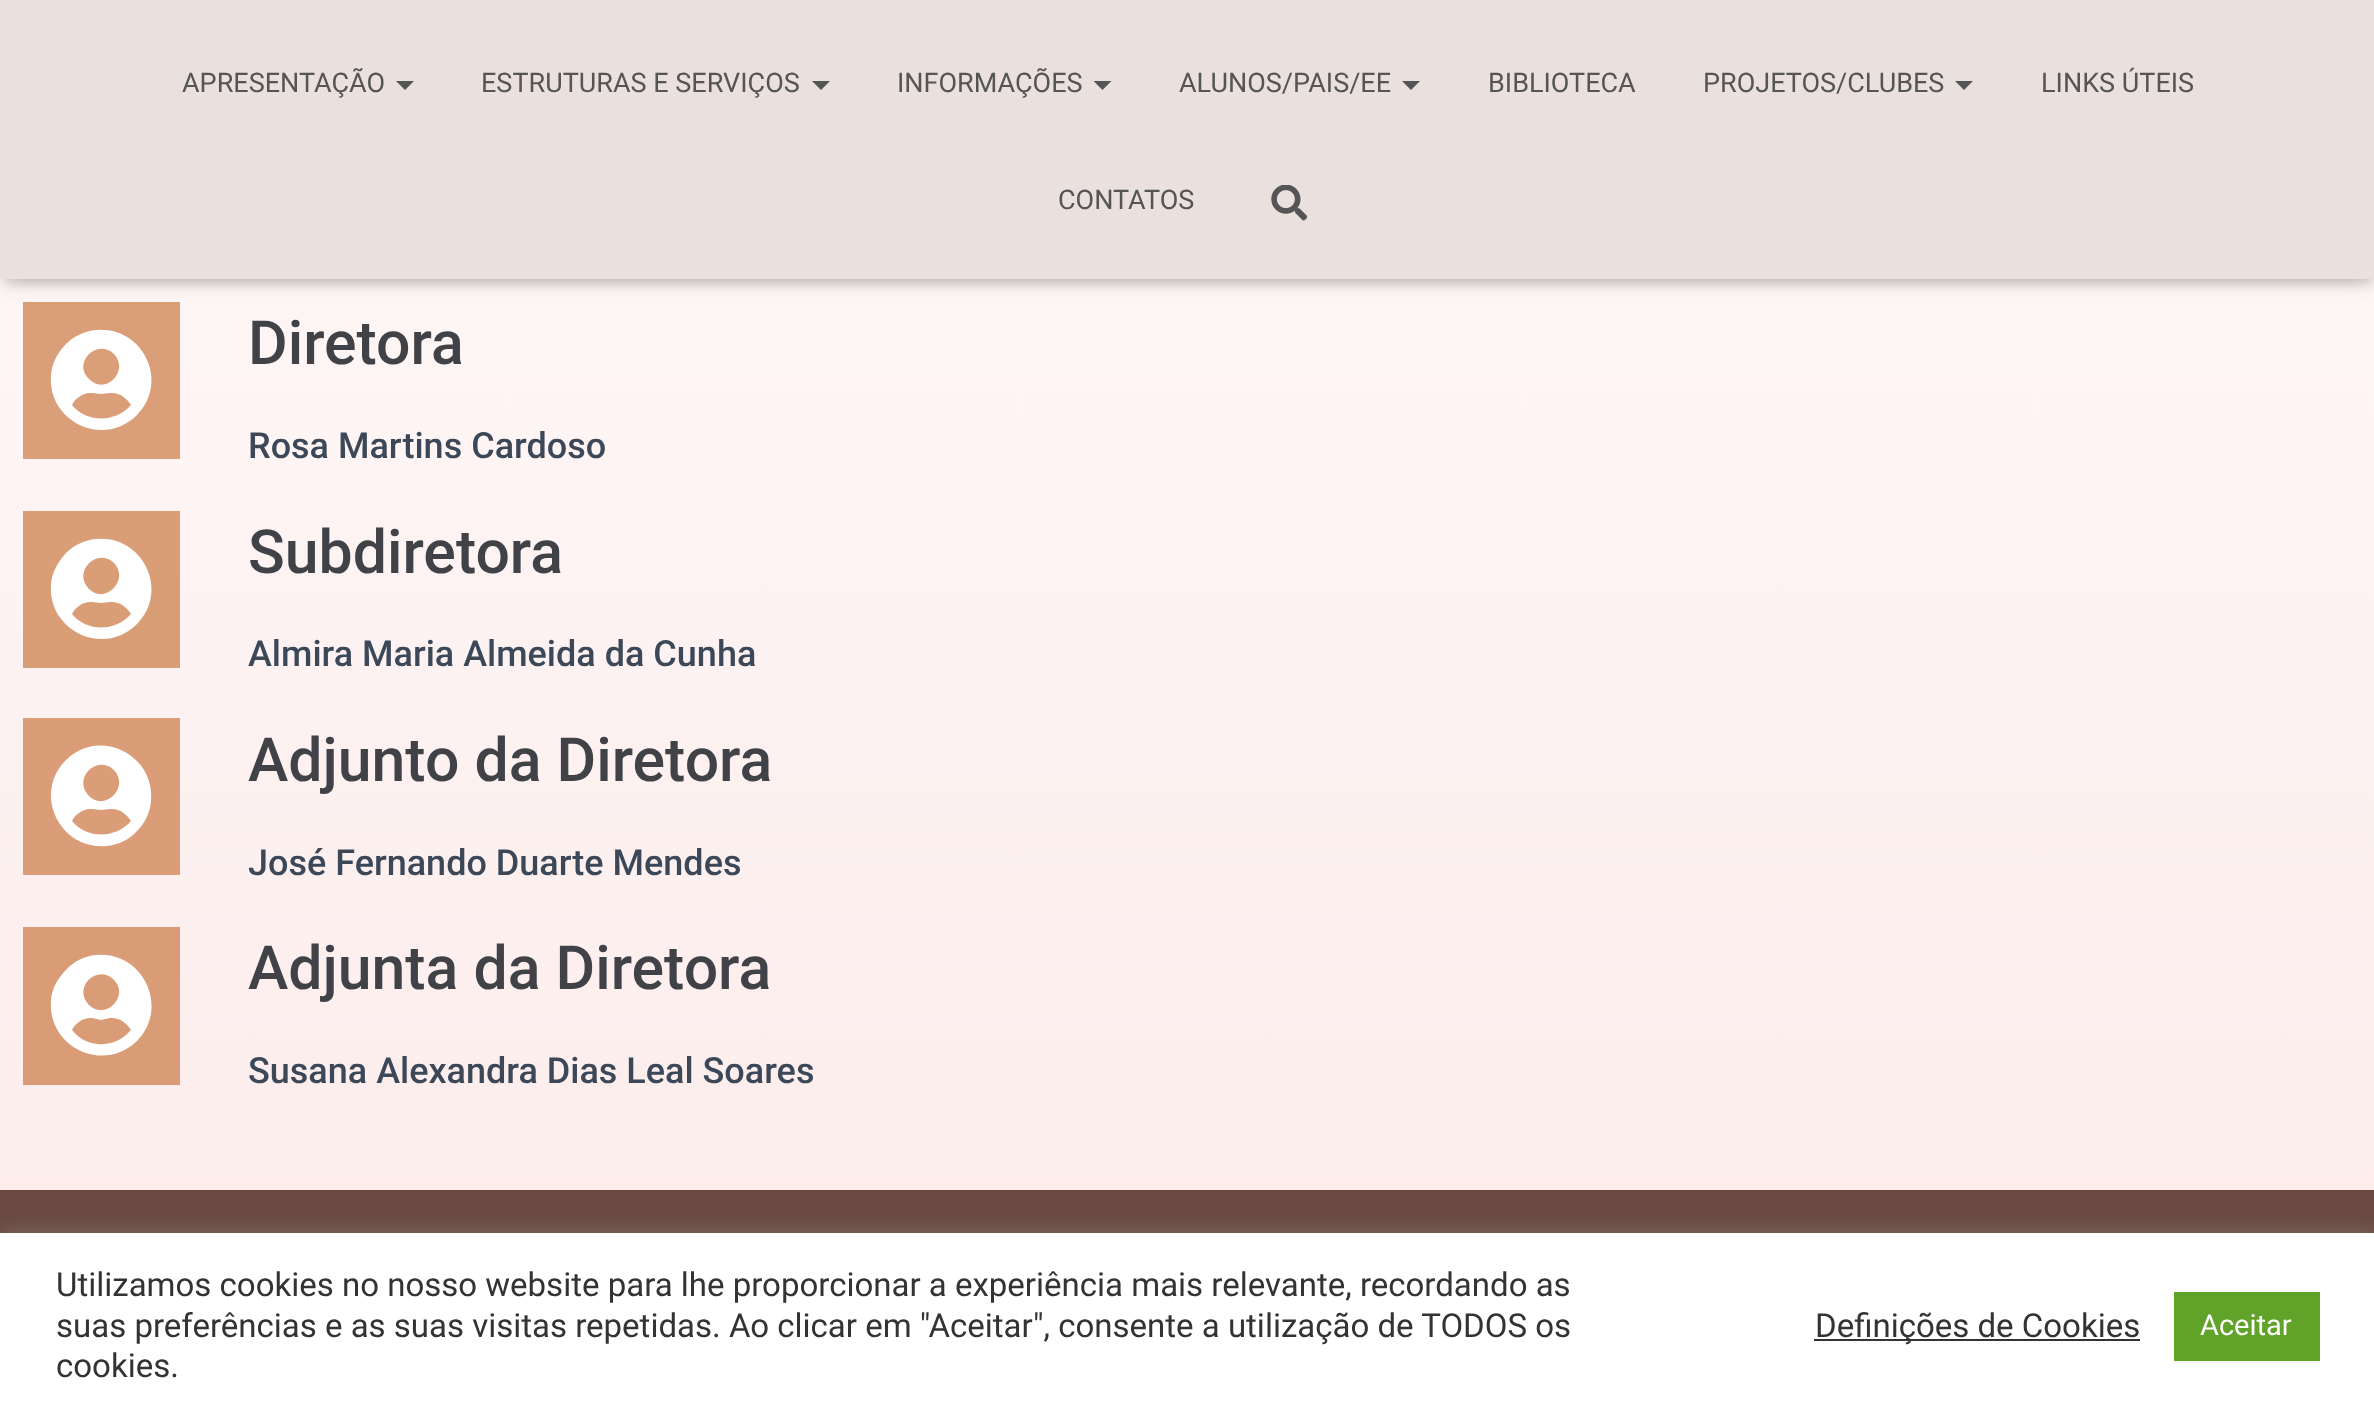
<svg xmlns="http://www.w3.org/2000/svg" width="2374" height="1417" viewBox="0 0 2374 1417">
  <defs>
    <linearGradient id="g1" gradientUnits="userSpaceOnUse" x1="1188" y1="-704" x2="1188" y2="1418"><stop offset="0" stop-color="rgb(255,255,255)"/><stop offset="1" stop-color="rgb(252,235,234)"/></linearGradient>
  </defs>
  <rect width="100%" height="100%" fill="rgb(255,255,255)"/>
  <rect x="0" y="279" width="2374" height="911" fill="url(#g1)"/>
  <rect x="5" y="14" width="2367" height="270" fill="rgba(0,0,0,0.1)" filter="blur(5.5px)"/>
  <rect x="23" y="302" width="157" height="157" fill="rgb(218,158,120)"/>
  <rect x="0" y="2" width="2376" height="279" fill="rgba(0,0,0,0.12)" filter="blur(11px)"/>
  <rect x="14" y="16" width="2349" height="252" fill="rgba(0,0,0,0.42)" filter="blur(11px)"/>
  <rect x="0" y="0" width="2374" height="279" fill="rgb(234,224,222)"/>
  <text x="182" y="92" font-family="Roboto" font-size="27" fill="rgb(85,85,85)">APRESENTAÇÃO</text>
  <path d="M396 81H414L405 90Z" fill="rgb(85,85,85)"/>
  <text x="481" y="92" font-family="Roboto" font-size="27" fill="rgb(85,85,85)">ESTRUTURAS E SERVIÇOS</text>
  <path d="M812 81H830L821 90Z" fill="rgb(85,85,85)"/>
  <text x="897" y="92" font-family="Roboto" font-size="27" fill="rgb(85,85,85)">INFORMAÇÕES</text>
  <path d="M1093.5 81H1111.5L1102.5 90Z" fill="rgb(85,85,85)"/>
  <text x="1179" y="92" font-family="Roboto" font-size="27" fill="rgb(85,85,85)">ALUNOS/PAIS/EE</text>
  <path d="M1402 81H1420L1411 90Z" fill="rgb(85,85,85)"/>
  <g font-family="Roboto" font-size="27" fill="rgb(85,85,85)">
    <text x="1488" y="92">BIBLIOTECA</text>
    <text x="1703" y="92">PROJETOS/CLUBES</text>
  </g>
  <path d="M1955 81H1973L1964 90Z" fill="rgb(85,85,85)"/>
  <g font-family="Roboto" font-size="27" fill="rgb(85,85,85)">
    <text x="2041" y="92">LINKS ÚTEIS</text>
    <text x="1058" y="209">CONTATOS</text>
  </g>
  <image x="1271" y="185" width="36" height="36" href="pic1.png"/>
  <path d="M66 344C74 336 85 331 96 330C143 326 170 382 137 415C103 449 47 421 51 375C52 363 58 352 66 344ZM114 354C97 338 72 363 89 379C105 396 130 371 114 354ZM72 405C87 423 115 423 131 405C127 398 119 392 110 393L101 394L92 393C84 392 75 398 72 405Z" fill="rgb(255,255,255)"/>
  <text x="248" y="364" font-family="Roboto" font-size="60.75" font-weight="500" fill="rgb(65,66,71)">Diretora</text>
  <text x="248" y="458" font-family="Roboto" font-size="36" font-weight="500" fill="rgb(60,72,88)">Rosa Martins Cardoso</text>
  <rect x="23" y="511" width="157" height="157" fill="rgb(218,158,119)"/>
  <path d="M66 553C74 545 85 540 96 539C143 535 170 591 137 624C103 658 47 630 51 584C52 572 58 562 66 553ZM114 563C97 547 72 572 89 589C105 605 130 580 114 563ZM72 614C87 632 115 632 131 614C127 607 119 601 110 602L101 603L92 602C84 601 75 607 72 614Z" fill="rgb(255,255,255)"/>
  <text x="248" y="573" font-family="Roboto" font-size="60.75" font-weight="500" fill="rgb(65,66,71)">Subdiretora</text>
  <text x="248" y="666" font-family="Roboto" font-size="36" font-weight="500" fill="rgb(60,72,88)">Almira Maria Almeida da Cunha</text>
  <rect x="23" y="718" width="157" height="157" fill="rgb(218,157,119)"/>
  <path d="M66 760C99 727 155 754 151 801C150 813 145 823 137 831C129 840 118 845 106 846C60 850 32 794 66 760ZM114 770C97 754 72 779 89 796C105 812 130 787 114 770ZM72 821C87 839 115 839 131 821C127 814 119 808 110 809L101 810L92 809C84 808 75 814 72 821Z" fill="rgb(255,255,255)"/>
  <text x="248" y="781" font-family="Roboto" font-size="60.75" font-weight="500" fill="rgb(65,66,71)">Adjunto da Diretora</text>
  <text x="248" y="875" font-family="Roboto" font-size="36" font-weight="500" fill="rgb(60,72,88)">José Fernando Duarte Mendes</text>
  <rect x="23" y="927" width="157" height="158" fill="rgb(218,156,118)"/>
  <path d="M66 970C74 961 85 956 96 955C143 951 170 1007 137 1041C103 1074 47 1047 51 1000C52 988 58 978 66 970ZM114 980C97 963 72 988 89 1005C105 1021 130 996 114 980ZM72 1030C87 1049 115 1049 131 1030C127 1023 119 1017 110 1018L101 1020L92 1018C84 1017 75 1023 72 1030Z" fill="rgb(255,255,255)"/>
  <text x="248" y="989" font-family="Roboto" font-size="60.75" font-weight="500" fill="rgb(65,66,71)">Adjunta da Diretora</text>
  <text x="248" y="1083" font-family="Roboto" font-size="36" font-weight="500" fill="rgb(60,72,88)">Susana Alexandra Dias Leal Soares</text>
  <rect x="0" y="1190" width="2374" height="43" fill="rgb(105,73,66)"/>
  <rect x="0" y="1231" width="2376" height="184" fill="rgba(172,171,171,0.3)" filter="blur(11px)"/>
  <rect x="0" y="1233" width="2374" height="184" fill="rgb(255,255,255)"/>
  <g font-family="Roboto" font-size="33" fill="rgb(51,51,51)">
    <text>
      <tspan x="56" y="1296">Utilizamos cookies no nosso website para lhe proporcionar a experiência mais relevante, recordando as</tspan>
      <tspan x="56" y="1337">suas preferências e as suas visitas repetidas. Ao clicar em "Aceitar", consente a utilização de TODOS os</tspan>
      <tspan x="56" y="1377">cookies.</tspan>
    </text>
  </g>
  <rect x="1814" y="1339" width="326" height="2" fill="rgb(51,51,51)"/>
  <text x="1815" y="1337" font-family="Roboto" font-size="33" fill="rgb(51,51,51)">Definições de Cookies</text>
  <rect x="2174" y="1292" width="146" height="69" fill="rgb(97,162,41)"/>
  <text x="2200" y="1335" font-family="Roboto" font-size="29" fill="rgb(255,255,255)">Aceitar</text>
</svg>
